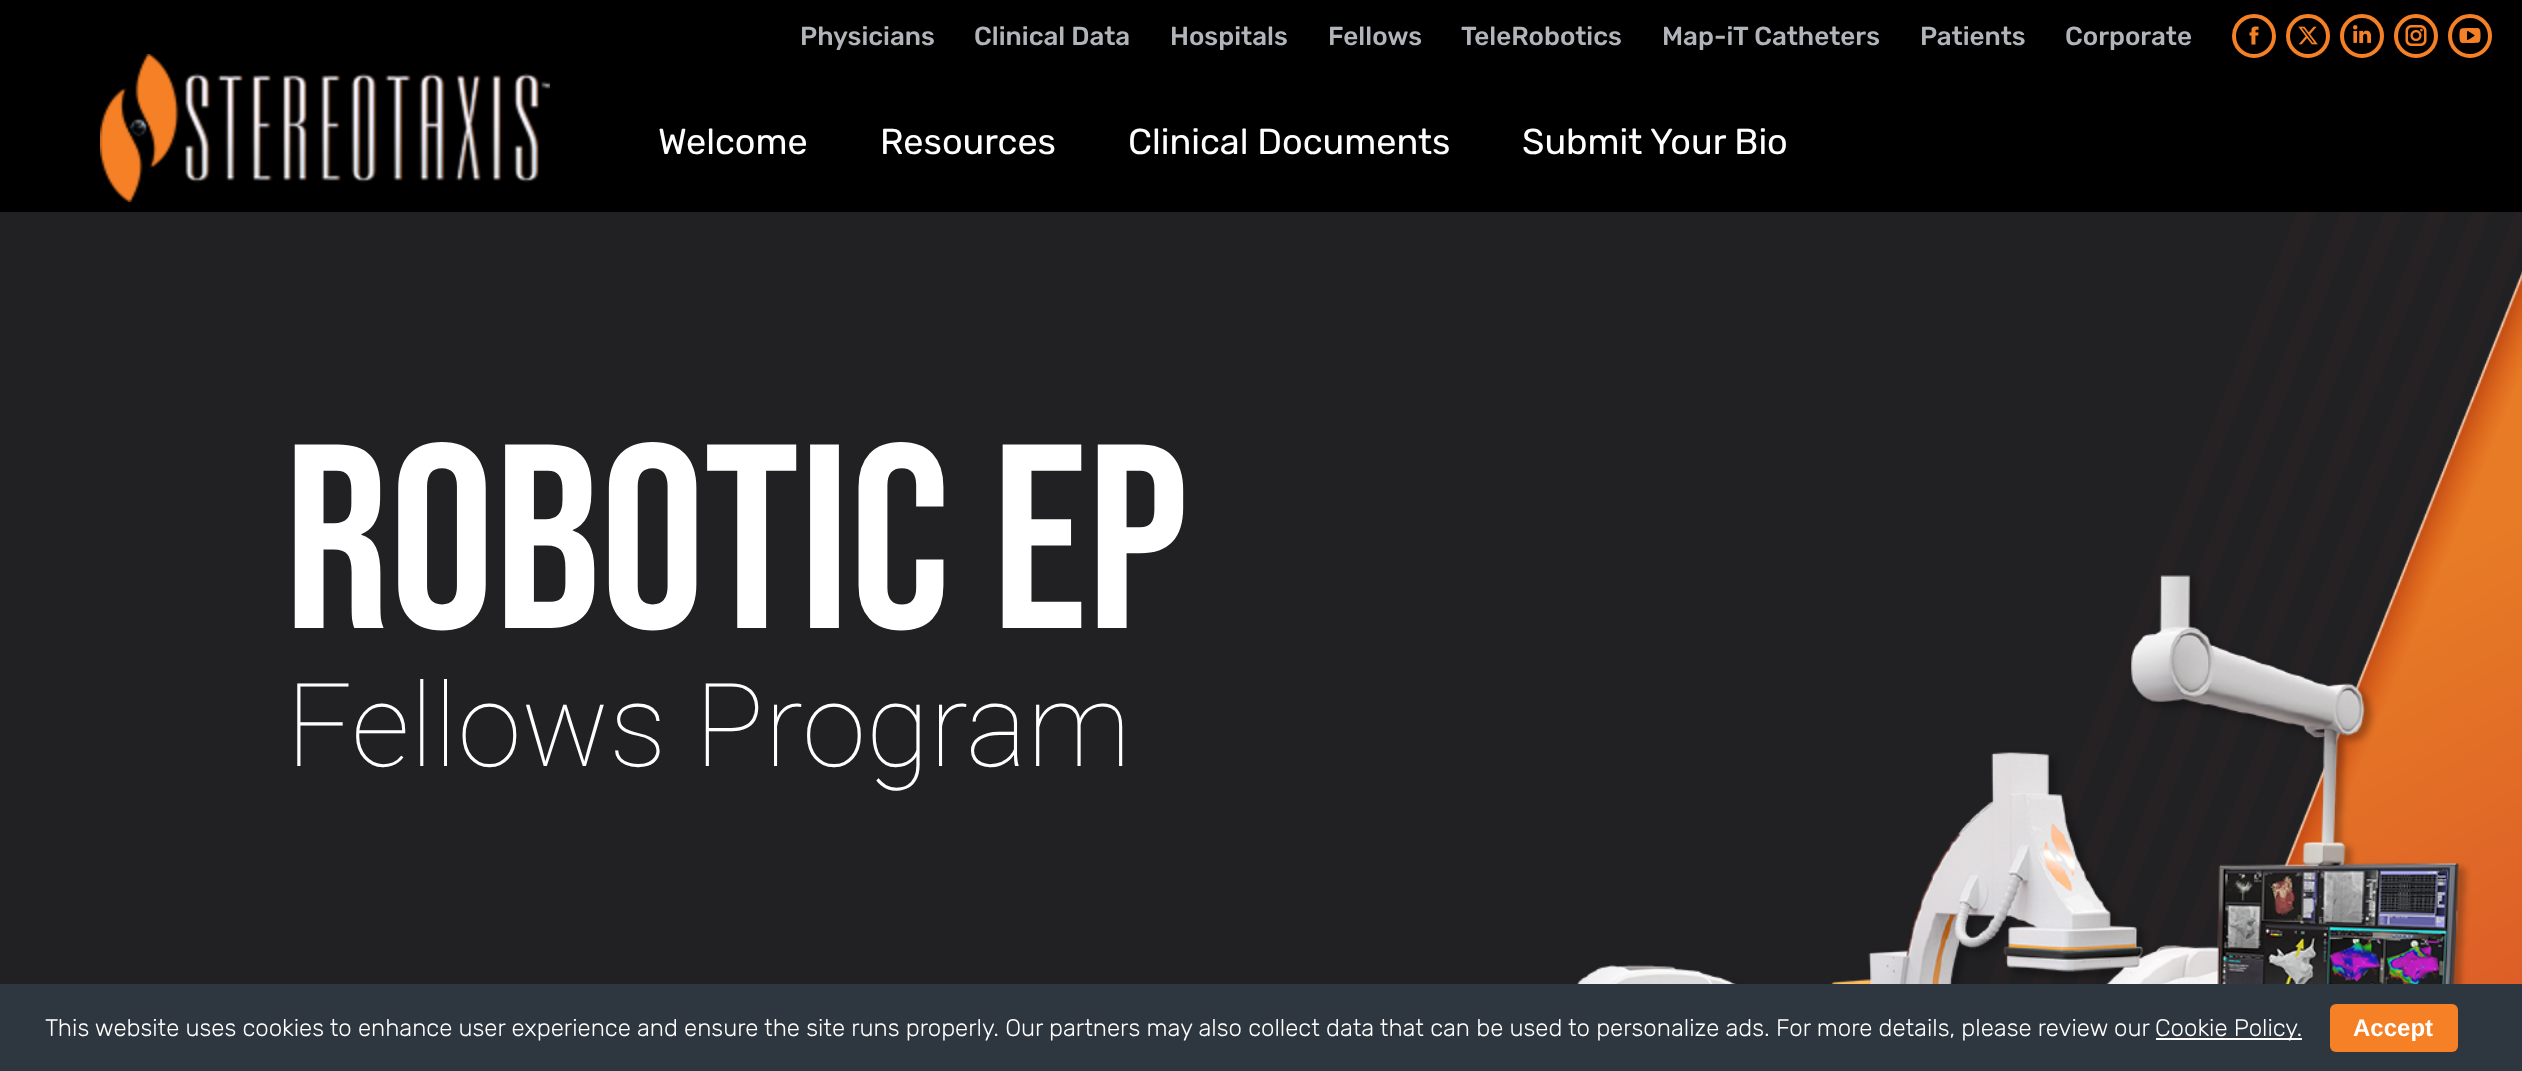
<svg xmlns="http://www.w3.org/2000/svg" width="2522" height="1071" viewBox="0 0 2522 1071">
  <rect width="100%" height="100%" fill="rgb(33,33,36)"/>
  <rect x="0" y="0" width="2522" height="212" fill="rgb(0,0,0)"/>
  <g font-family="Rubik" font-size="26" font-weight="500" fill="rgb(177,180,184)">
    <text x="800" y="45">Physicians</text>
    <text x="974" y="45">Clinical Data</text>
    <text x="1170" y="45">Hospitals</text>
    <text x="1328" y="45">Fellows</text>
    <text x="1461" y="45">TeleRobotics</text>
    <text x="1662" y="45">Map-iT Catheters</text>
    <text x="1920" y="45">Patients</text>
    <text x="2065" y="45">Corporate</text>
  </g>
  <circle cx="2254" cy="36" r="20" fill="none" stroke="rgb(245,128,37)" stroke-width="4"/>
  <image x="2249" y="26" width="10" height="19" href="pic1.png"/>
  <circle cx="2308" cy="36" r="20" fill="none" stroke="rgb(245,128,37)" stroke-width="4"/>
  <image x="2298" y="26" width="20" height="19" href="pic2.png"/>
  <circle cx="2362" cy="36" r="20" fill="none" stroke="rgb(245,128,37)" stroke-width="4"/>
  <image x="2353" y="25" width="18" height="18" href="pic3.png"/>
  <circle cx="2416" cy="36" r="20" fill="none" stroke="rgb(245,128,37)" stroke-width="4"/>
  <image x="2405" y="25" width="22" height="21" href="pic4.png"/>
  <circle cx="2470" cy="36" r="20" fill="none" stroke="rgb(245,128,37)" stroke-width="4"/>
  <image x="2459" y="28" width="22" height="15" href="pic5.png"/>
  <image x="100" y="54" width="450" height="148" href="pic6.png"/>
  <g font-family="Rubik" font-size="36" fill="rgb(255,255,255)">
    <text x="658" y="154">Welcome</text>
    <text x="880" y="154">Resources</text>
    <text x="1128" y="154">Clinical Documents</text>
    <text x="1522" y="154">Submit Your Bio</text>
  </g>
  <image x="1989" y="212" width="533" height="772" href="pic7.png"/>
  <text x="284" y="628" font-family="Bebas Neue" font-size="262" fill="rgb(255,255,255)">ROBOTIC EP</text>
  <image x="1577" y="270" width="945" height="714" href="pic8.png"/>
  <text x="286" y="766" font-family="Roboto" font-size="116" font-weight="100" fill="rgb(255,255,255)">Fellows Program</text>
  <rect x="0" y="984" width="2522" height="87" fill="rgb(46,54,63)"/>
  <text x="45" y="1036" font-family="Rubik" font-size="24" font-weight="300" fill="rgb(255,255,255)">This website uses cookies to enhance user experience and ensure the site runs properly. Our partners may also collect data that can be used to personalize ads. For more details, please review our</text>
  <rect x="2156" y="1038" width="146" height="2" fill="rgb(255,255,255)"/>
  <text x="2155" y="1036" font-family="Rubik" font-size="24" font-weight="300" fill="rgb(255,255,255)">Cookie Policy.</text>
  <rect x="2330" y="1004" width="128" height="48" rx="6" fill="rgb(245,128,38)"/>
  <text x="2353" y="1036" font-family="Liberation Sans" font-size="24" font-weight="bold" fill="rgb(255,255,255)">Accept</text>
</svg>
